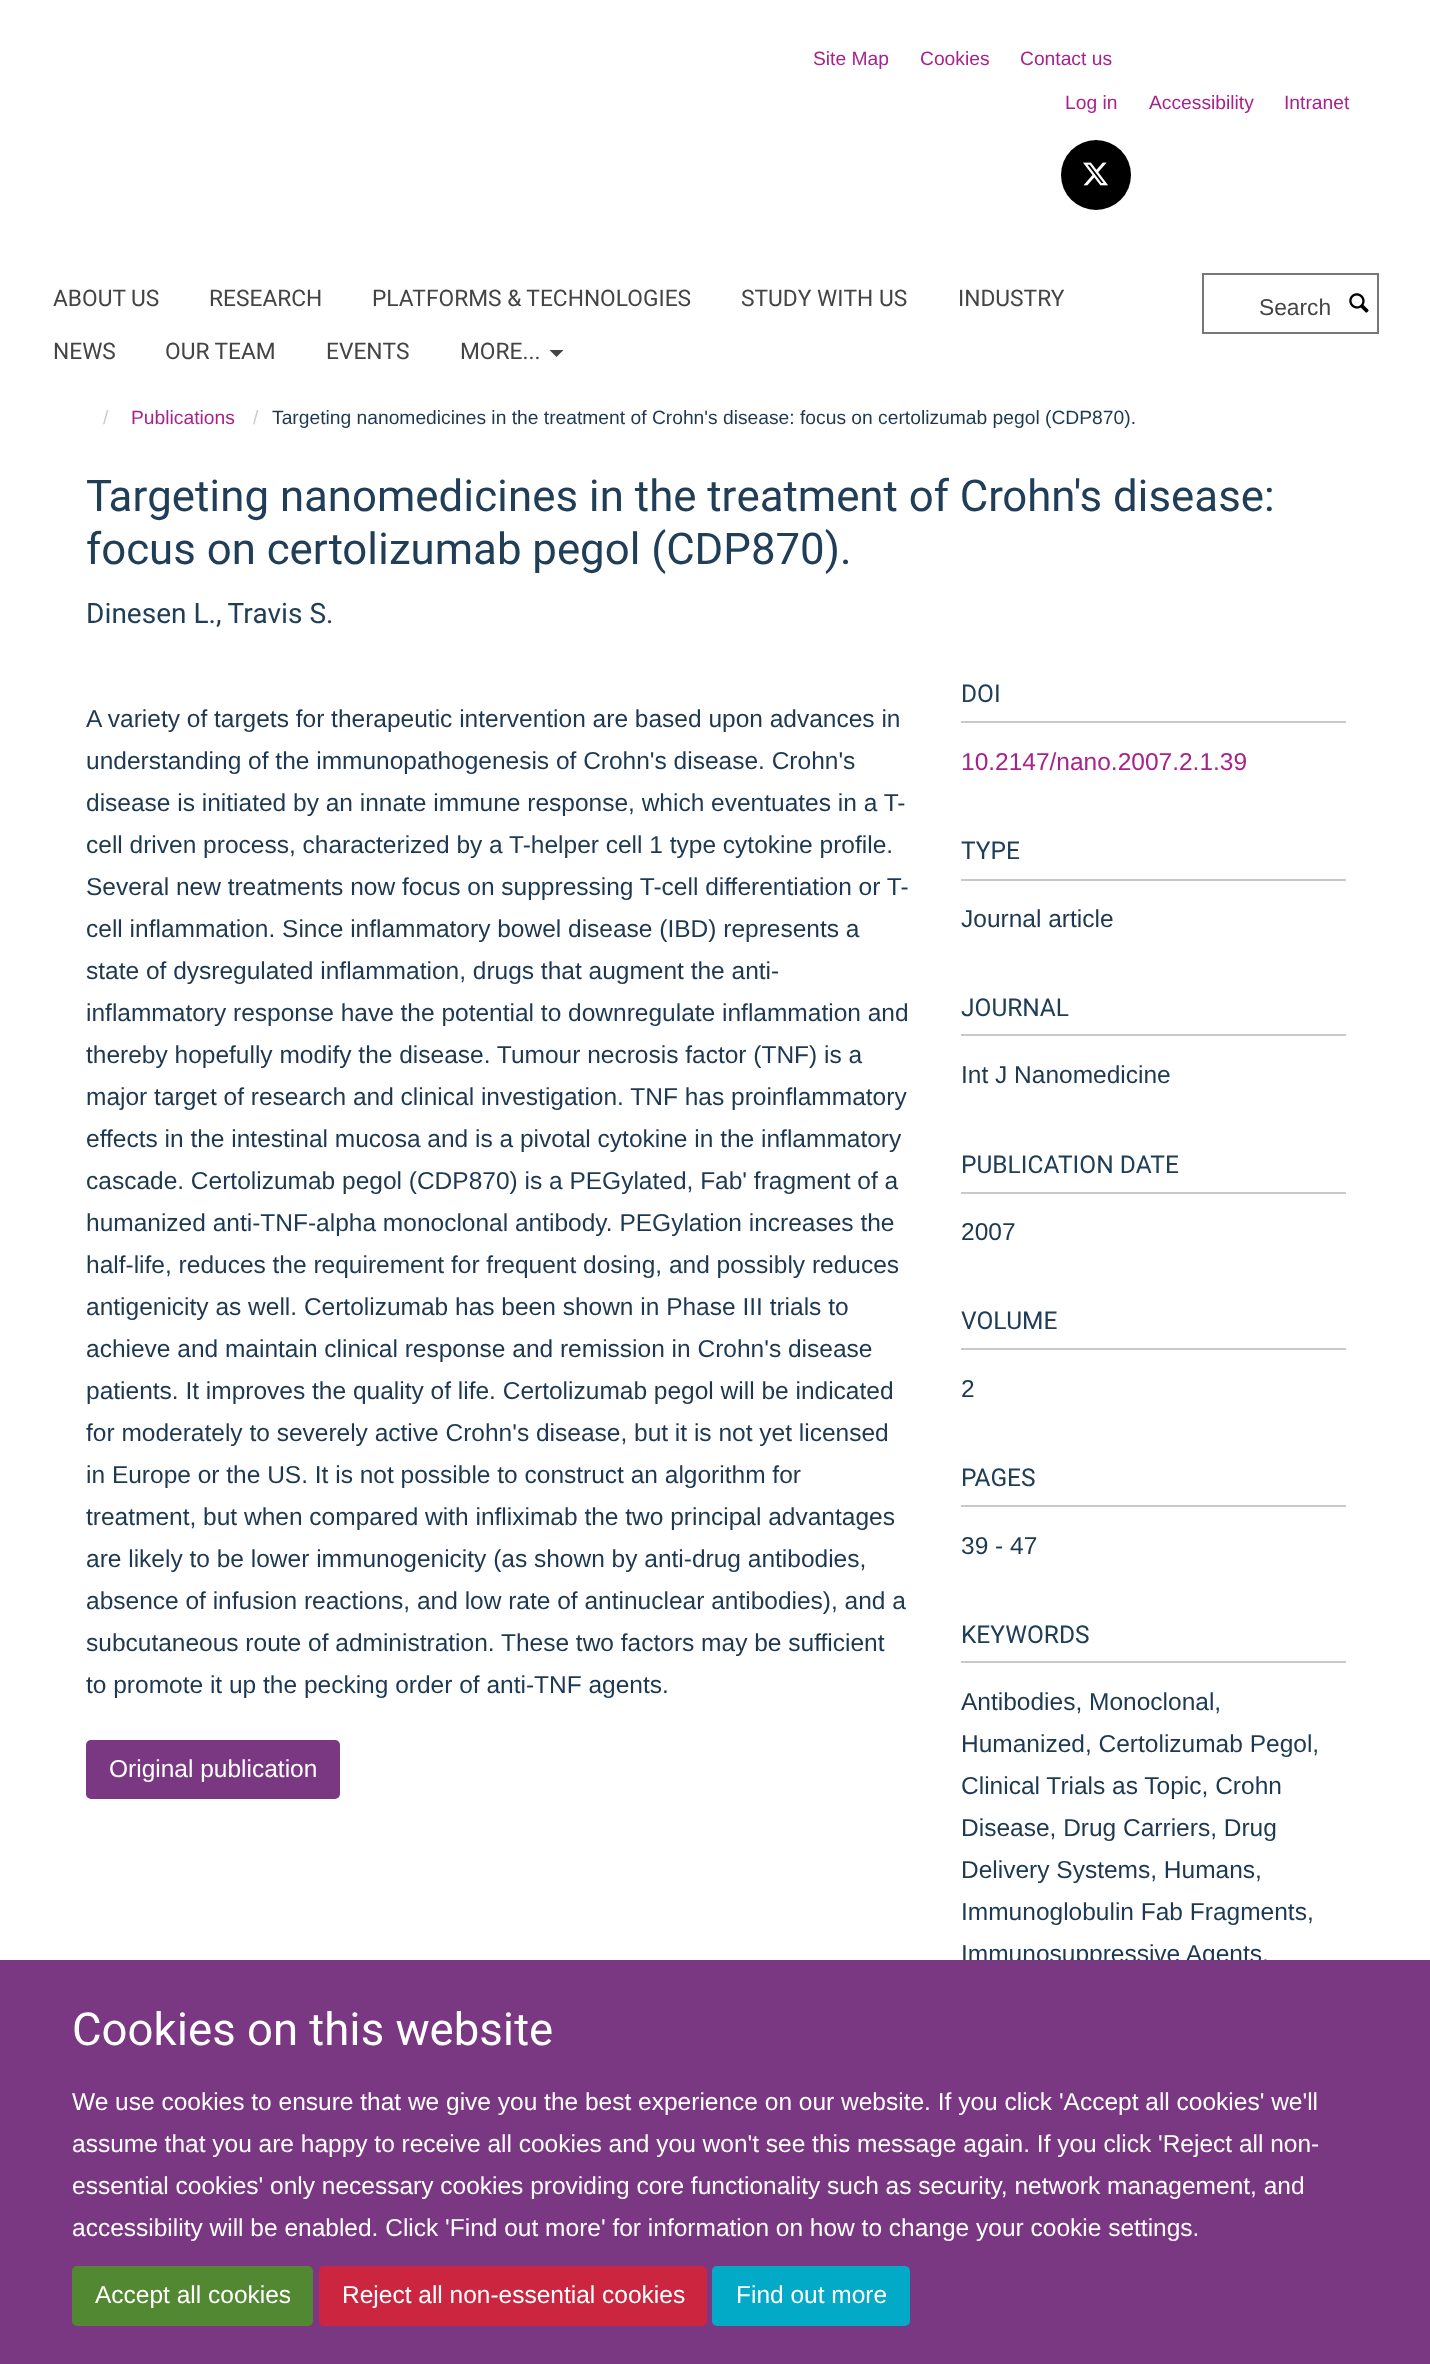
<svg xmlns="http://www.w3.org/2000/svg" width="1430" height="2364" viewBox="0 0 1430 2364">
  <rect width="100%" height="100%" fill="rgb(255,255,255)"/>
  <g font-family="Liberation Sans" font-size="19.25" fill="rgb(168,34,139)">
    <text x="813" y="65">Site Map</text>
    <text x="920" y="65">Cookies</text>
    <text x="1020" y="65">Contact us</text>
    <text x="1065" y="109">Log in</text>
    <text x="1149" y="109">Accessibility</text>
    <text x="1284" y="109">Intranet</text>
  </g>
  <circle cx="1096" cy="175" r="35" fill="rgb(0,0,0)"/>
  <image x="1083" y="162" width="25" height="24" href="pic1.png"/>
  <g font-family="Heebo" font-size="22.75" fill="rgb(68,68,68)">
    <text x="53" y="306">ABOUT US</text>
    <text x="209" y="306">RESEARCH</text>
    <text x="372" y="306">PLATFORMS &amp; TECHNOLOGIES</text>
    <text x="741" y="306">STUDY WITH US</text>
    <text x="958" y="306">INDUSTRY</text>
    <text x="53" y="359">NEWS</text>
    <text x="165" y="359">OUR TEAM</text>
    <text x="326" y="359">EVENTS</text>
    <text x="460" y="359">MORE...</text>
  </g>
  <path d="M549.5 350H563.5L556.5 357Z" fill="rgb(68,68,68)"/>
  <rect x="1203" y="274" width="175" height="59" fill="none" stroke="rgb(119,119,119)" stroke-width="2"/>
  <text x="1259" y="315" font-family="Liberation Sans" font-size="22.75" fill="rgb(68,68,68)">Search</text>
  <image x="1349" y="293" width="20" height="20" href="pic2.png"/>
  <text x="103" y="424" font-family="Liberation Sans" font-size="19.25" fill="rgb(204,204,204)">/</text>
  <text x="131" y="424" font-family="Liberation Sans" font-size="19.25" fill="rgb(168,34,139)">Publications</text>
  <text x="253" y="424" font-family="Liberation Sans" font-size="19.25" fill="rgb(204,204,204)">/</text>
  <text x="272" y="424" font-family="Liberation Sans" font-size="19.25" fill="rgb(29,56,80)">Targeting nanomedicines in the treatment of Crohn's disease: focus on certolizumab pegol (CDP870).</text>
  <g font-family="Heebo" font-size="43.75" fill="rgb(32,62,88)">
    <text>
      <tspan x="86" y="511">Targeting nanomedicines in the treatment of Crohn's disease:</tspan>
      <tspan x="86" y="564">focus on certolizumab pegol (CDP870).</tspan>
    </text>
  </g>
  <text x="86" y="623" font-family="Heebo" font-size="28" fill="rgb(32,62,88)">Dinesen L., Travis S.</text>
  <g font-family="Liberation Sans" font-size="24.5" fill="rgb(29,56,80)">
    <text>
      <tspan x="86" y="727">A variety of targets for therapeutic intervention are based upon advances in</tspan>
      <tspan x="86" y="769">understanding of the immunopathogenesis of Crohn's disease. Crohn's</tspan>
      <tspan x="86" y="811">disease is initiated by an innate immune response, which eventuates in a T-</tspan>
      <tspan x="86" y="853">cell driven process, characterized by a T-helper cell 1 type cytokine profile.</tspan>
      <tspan x="86" y="895">Several new treatments now focus on suppressing T-cell differentiation or T-</tspan>
      <tspan x="86" y="937">cell inflammation. Since inflammatory bowel disease (IBD) represents a</tspan>
      <tspan x="86" y="979">state of dysregulated inflammation, drugs that augment the anti-</tspan>
      <tspan x="86" y="1021">inflammatory response have the potential to downregulate inflammation and</tspan>
      <tspan x="86" y="1063">thereby hopefully modify the disease. Tumour necrosis factor (TNF) is a</tspan>
      <tspan x="86" y="1105">major target of research and clinical investigation. TNF has proinflammatory</tspan>
      <tspan x="86" y="1147">effects in the intestinal mucosa and is a pivotal cytokine in the inflammatory</tspan>
      <tspan x="86" y="1189">cascade. Certolizumab pegol (CDP870) is a PEGylated, Fab' fragment of a</tspan>
      <tspan x="86" y="1231">humanized anti-TNF-alpha monoclonal antibody. PEGylation increases the</tspan>
      <tspan x="86" y="1273">half-life, reduces the requirement for frequent dosing, and possibly reduces</tspan>
      <tspan x="86" y="1315">antigenicity as well. Certolizumab has been shown in Phase III trials to</tspan>
      <tspan x="86" y="1357">achieve and maintain clinical response and remission in Crohn's disease</tspan>
      <tspan x="86" y="1399">patients. It improves the quality of life. Certolizumab pegol will be indicated</tspan>
      <tspan x="86" y="1441">for moderately to severely active Crohn's disease, but it is not yet licensed</tspan>
      <tspan x="86" y="1483">in Europe or the US. It is not possible to construct an algorithm for</tspan>
      <tspan x="86" y="1525">treatment, but when compared with infliximab the two principal advantages</tspan>
      <tspan x="86" y="1567">are likely to be lower immunogenicity (as shown by anti-drug antibodies,</tspan>
      <tspan x="86" y="1609">absence of infusion reactions, and low rate of antinuclear antibodies), and a</tspan>
      <tspan x="86" y="1651">subcutaneous route of administration. These two factors may be sufficient</tspan>
      <tspan x="86" y="1693">to promote it up the pecking order of anti-TNF agents.</tspan>
    </text>
  </g>
  <rect x="87" y="1741" width="252" height="57" rx="4" fill="rgb(122,55,130)" stroke="rgb(122,55,130)" stroke-width="2"/>
  <text x="109" y="1777" font-family="Liberation Sans" font-size="24.5" fill="rgb(255,255,255)">Original publication</text>
  <rect x="961" y="721" width="385" height="2" fill="rgb(198,202,207)"/>
  <text x="961" y="702" font-family="Heebo" font-size="24.5" fill="rgb(32,62,88)">DOI</text>
  <text x="961" y="770" font-family="Liberation Sans" font-size="24.5" fill="rgb(168,34,139)">10.2147/nano.2007.2.1.39</text>
  <rect x="961" y="879" width="385" height="2" fill="rgb(198,202,207)"/>
  <text x="961" y="859" font-family="Heebo" font-size="24.5" fill="rgb(32,62,88)">TYPE</text>
  <text x="961" y="927" font-family="Liberation Sans" font-size="24.5" fill="rgb(29,56,80)">Journal article</text>
  <rect x="961" y="1034" width="385" height="2" fill="rgb(198,202,207)"/>
  <text x="961" y="1016" font-family="Heebo" font-size="24.5" fill="rgb(32,62,88)">JOURNAL</text>
  <text x="961" y="1083" font-family="Liberation Sans" font-size="24.5" fill="rgb(29,56,80)">Int J Nanomedicine</text>
  <rect x="961" y="1192" width="385" height="2" fill="rgb(198,202,207)"/>
  <text x="961" y="1173" font-family="Heebo" font-size="24.5" fill="rgb(32,62,88)">PUBLICATION DATE</text>
  <text x="961" y="1240" font-family="Liberation Sans" font-size="24.5" fill="rgb(29,56,80)">2007</text>
  <rect x="961" y="1348" width="385" height="2" fill="rgb(198,202,207)"/>
  <text x="961" y="1329" font-family="Heebo" font-size="24.5" fill="rgb(32,62,88)">VOLUME</text>
  <text x="961" y="1397" font-family="Liberation Sans" font-size="24.5" fill="rgb(29,56,80)">2</text>
  <rect x="961" y="1505" width="385" height="2" fill="rgb(198,202,207)"/>
  <text x="961" y="1486" font-family="Heebo" font-size="24.5" fill="rgb(32,62,88)">PAGES</text>
  <text x="961" y="1554" font-family="Liberation Sans" font-size="24.5" fill="rgb(29,56,80)">39 - 47</text>
  <rect x="961" y="1661" width="385" height="2" fill="rgb(198,202,207)"/>
  <text x="961" y="1643" font-family="Heebo" font-size="24.5" fill="rgb(32,62,88)">KEYWORDS</text>
  <g font-family="Liberation Sans" font-size="24.5" fill="rgb(29,56,80)">
    <text>
      <tspan x="961" y="1710">Antibodies, Monoclonal,</tspan>
      <tspan x="961" y="1752">Humanized, Certolizumab Pegol,</tspan>
      <tspan x="961" y="1794">Clinical Trials as Topic, Crohn</tspan>
      <tspan x="961" y="1836">Disease, Drug Carriers, Drug</tspan>
      <tspan x="961" y="1878">Delivery Systems, Humans,</tspan>
      <tspan x="961" y="1920">Immunoglobulin Fab Fragments,</tspan>
      <tspan x="961" y="1962">Immunosuppressive Agents,</tspan>
    </text>
  </g>
  <rect x="0" y="1960" width="1430" height="404" fill="rgb(122,55,130)"/>
  <text x="72" y="2045" font-family="Heebo" font-size="45.5" fill="rgb(255,255,255)">Cookies on this website</text>
  <g font-family="Liberation Sans" font-size="24.5" fill="rgb(255,255,255)">
    <text>
      <tspan x="72" y="2110">We use cookies to ensure that we give you the best experience on our website. If you click 'Accept all cookies' we'll</tspan>
      <tspan x="72" y="2152">assume that you are happy to receive all cookies and you won't see this message again. If you click 'Reject all non-</tspan>
      <tspan x="72" y="2194">essential cookies' only necessary cookies providing core functionality such as security, network management, and</tspan>
      <tspan x="72" y="2236">accessibility will be enabled. Click 'Find out more' for information on how to change your cookie settings.</tspan>
    </text>
  </g>
  <rect x="73" y="2267" width="239" height="58" rx="4" fill="rgb(81,136,49)" stroke="rgb(81,136,49)" stroke-width="2"/>
  <text x="95" y="2303" font-family="Liberation Sans" font-size="24.5" fill="rgb(255,255,255)">Accept all cookies</text>
  <rect x="320" y="2267" width="386" height="58" rx="4" fill="rgb(204,37,63)" stroke="rgb(204,37,63)" stroke-width="2"/>
  <text x="342" y="2303" font-family="Liberation Sans" font-size="24.5" fill="rgb(255,255,255)">Reject all non-essential cookies</text>
  <rect x="713" y="2267" width="196" height="58" rx="4" fill="rgb(2,170,199)" stroke="rgb(2,170,199)" stroke-width="2"/>
  <text x="736" y="2303" font-family="Liberation Sans" font-size="24.5" fill="rgb(255,255,255)">Find out more</text>
</svg>
